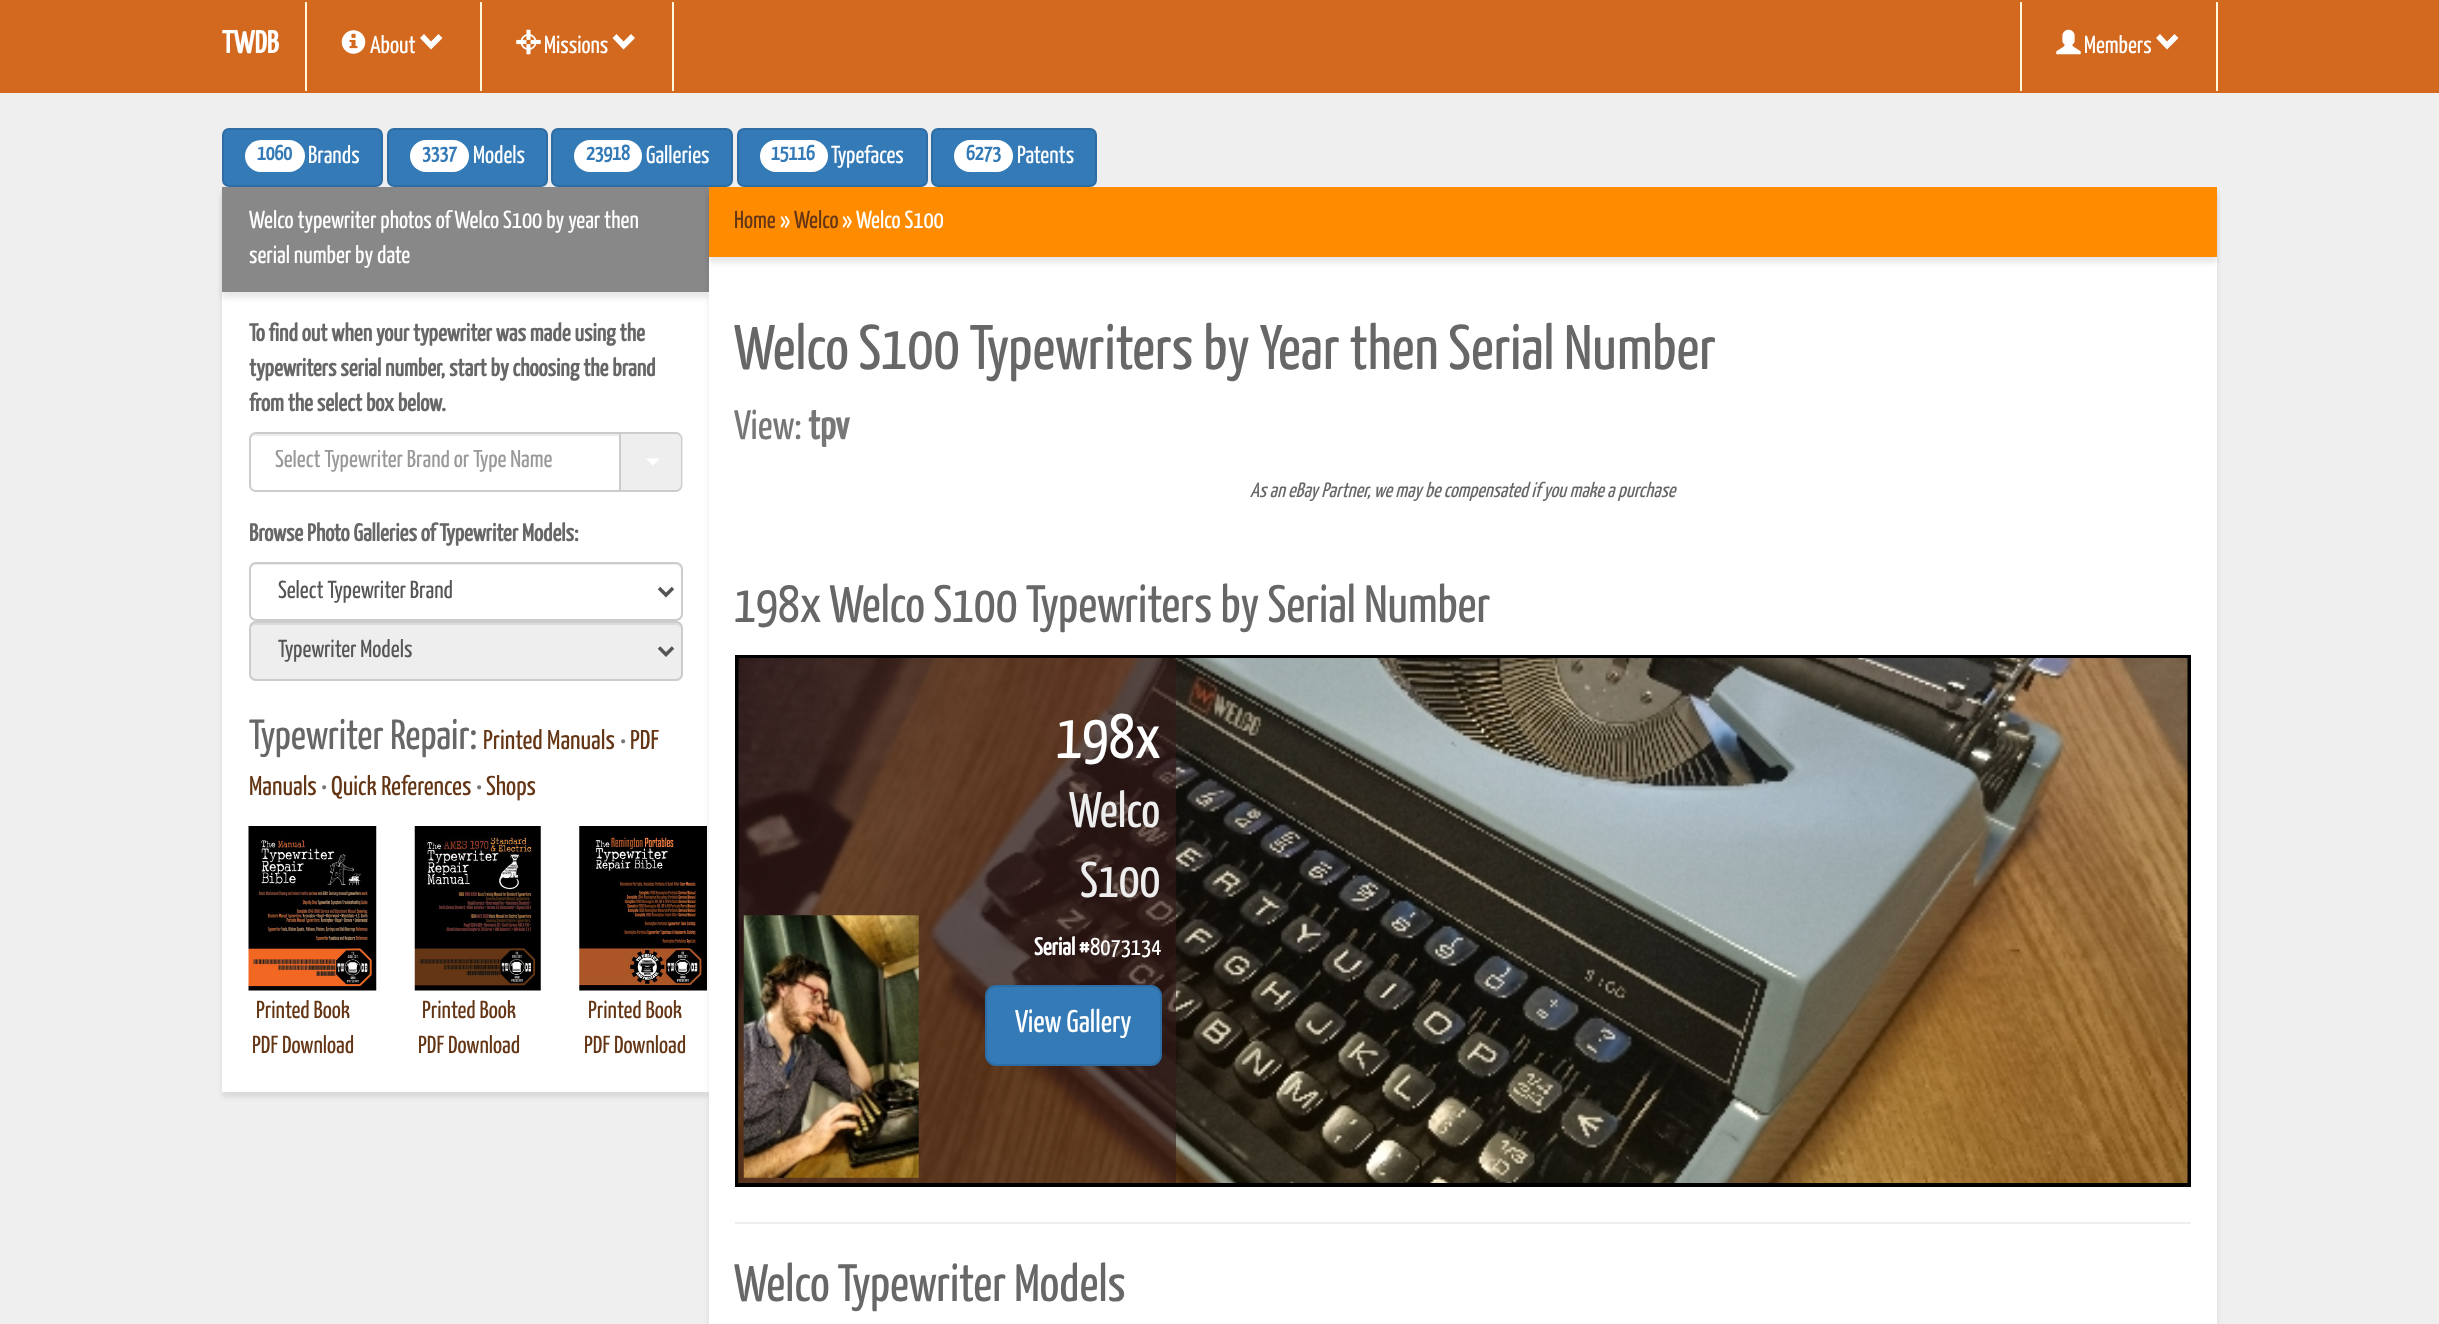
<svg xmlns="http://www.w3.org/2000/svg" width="2439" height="1324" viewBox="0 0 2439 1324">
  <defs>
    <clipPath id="clip1"><rect x="271" y="450" width="328" height="24"/></clipPath>
  </defs>
  <rect width="100%" height="100%" fill="rgb(239,239,239)"/>
  <rect x="0" y="0" width="2439" height="93" fill="rgb(210,105,30)"/>
  <text x="222" y="53" font-family="Yanone Kaffeesatz" font-size="31.5" font-weight="bold" fill="rgb(255,255,255)">TWDB</text>
  <rect x="305" y="2" width="2" height="89" fill="rgb(255,248,220)"/>
  <image x="341" y="30" width="25" height="24" href="pic1.png"/>
  <text x="370" y="53" font-family="Yanone Kaffeesatz" font-size="24.5" fill="rgb(255,255,255)">About</text>
  <path d="M442.5 38L431 49.5L420 38L424 34L431 41.5L438.5 34Z" fill="rgb(255,255,255)"/>
  <rect x="672" y="2" width="2" height="89" fill="rgb(255,248,220)"/>
  <rect x="480" y="2" width="2" height="89" fill="rgb(255,248,220)"/>
  <image x="516" y="29" width="25" height="26" href="pic2.png"/>
  <text x="544" y="53" font-family="Yanone Kaffeesatz" font-size="24.5" fill="rgb(255,255,255)">Missions</text>
  <path d="M635 38L623.5 49.5L612.5 38L616.5 34L623.5 41.5L631 34Z" fill="rgb(255,255,255)"/>
  <rect x="2216" y="2" width="2" height="89" fill="rgb(255,248,220)"/>
  <rect x="2020" y="2" width="2" height="89" fill="rgb(255,248,220)"/>
  <image x="2056" y="29" width="25" height="26" href="pic3.png"/>
  <text x="2084" y="53" font-family="Yanone Kaffeesatz" font-size="24.5" fill="rgb(255,255,255)">Members</text>
  <path d="M2178.5 38L2167 49.5L2156 38L2160 34L2167 41.5L2174.5 34Z" fill="rgb(255,255,255)"/>
  <rect x="223" y="129" width="159" height="57" rx="6" fill="rgb(51,122,183)" stroke="rgb(46,109,164)" stroke-width="2"/>
  <rect x="245" y="140" width="60" height="32" rx="16" fill="rgb(255,255,255)"/>
  <text x="257" y="160" font-family="Yanone Kaffeesatz" font-size="21" font-weight="bold" fill="rgb(51,122,183)">1060</text>
  <text x="308" y="163" font-family="Yanone Kaffeesatz" font-size="24.5" fill="rgb(255,255,255)">Brands</text>
  <rect x="388" y="129" width="159" height="57" rx="6" fill="rgb(51,122,183)" stroke="rgb(46,109,164)" stroke-width="2"/>
  <rect x="410" y="140" width="59" height="32" rx="16" fill="rgb(255,255,255)"/>
  <text x="422" y="160" font-family="Yanone Kaffeesatz" font-size="21" font-weight="bold" fill="rgb(51,122,183)">3337</text>
  <text x="473" y="163" font-family="Yanone Kaffeesatz" font-size="24.5" fill="rgb(255,255,255)">Models</text>
  <rect x="552" y="129" width="180" height="57" rx="6" fill="rgb(51,122,183)" stroke="rgb(46,109,164)" stroke-width="2"/>
  <rect x="574" y="140" width="68" height="32" rx="16" fill="rgb(255,255,255)"/>
  <text x="586" y="160" font-family="Yanone Kaffeesatz" font-size="21" font-weight="bold" fill="rgb(51,122,183)">23918</text>
  <text x="646" y="163" font-family="Yanone Kaffeesatz" font-size="24.5" fill="rgb(255,255,255)">Galleries</text>
  <rect x="738" y="129" width="189" height="57" rx="6" fill="rgb(51,122,183)" stroke="rgb(46,109,164)" stroke-width="2"/>
  <rect x="760" y="140" width="68" height="32" rx="16" fill="rgb(255,255,255)"/>
  <text x="771" y="160" font-family="Yanone Kaffeesatz" font-size="21" font-weight="bold" fill="rgb(51,122,183)">15116</text>
  <text x="831" y="163" font-family="Yanone Kaffeesatz" font-size="24.5" fill="rgb(255,255,255)">Typefaces</text>
  <rect x="932" y="129" width="164" height="57" rx="6" fill="rgb(51,122,183)" stroke="rgb(46,109,164)" stroke-width="2"/>
  <rect x="954" y="140" width="59" height="32" rx="16" fill="rgb(255,255,255)"/>
  <text x="966" y="160" font-family="Yanone Kaffeesatz" font-size="21" font-weight="bold" fill="rgb(51,122,183)">6273</text>
  <text x="1017" y="163" font-family="Yanone Kaffeesatz" font-size="24.5" fill="rgb(255,255,255)">Patents</text>
  <rect x="222" y="193" width="487" height="904" fill="rgba(0,0,0,0.09)" filter="blur(2.5px)"/>
  <rect x="222" y="292" width="487" height="800" fill="rgb(255,255,255)"/>
  <rect x="222" y="193" width="487" height="105" fill="rgba(0,0,0,0.09)" filter="blur(2.5px)"/>
  <rect x="222" y="187" width="487" height="105" fill="rgb(136,136,136)"/>
  <g font-family="Yanone Kaffeesatz" font-size="24.5" fill="rgb(255,255,255)">
    <text>
      <tspan x="249" y="228">Welco typewriter photos of Welco S100 by year then</tspan>
      <tspan x="249" y="263">serial number by date</tspan>
    </text>
  </g>
  <g font-family="Yanone Kaffeesatz" font-size="24.5" font-weight="bold" fill="rgb(103,103,103)">
    <text>
      <tspan x="249" y="341">To find out when your typewriter was made using the</tspan>
      <tspan x="249" y="376">typewriters serial number, start by choosing the brand</tspan>
      <tspan x="249" y="411">from the select box below.</tspan>
    </text>
  </g>
  <path d="M256 436H620V434H255C251 434 250 438 250 441C250 438 253 436 256 436Z" fill="rgb(236,236,236)"/>
  <path d="M256 433H620V491H256C252.5 491 250 488.5 250 485V439C250 435.5 252.5 433 256 433Z" fill="none" stroke="rgb(204,204,204)" stroke-width="2"/>
  <g clip-path="url(#clip1)">
    <text x="275" y="467" font-family="Yanone Kaffeesatz" font-size="24.5" fill="rgb(153,153,153)">Select Typewriter Brand or Type Name</text>
  </g>
  <path d="M621 432H676C680 432 683 435 683 439V485C683 489 680 492 676 492H621Z" fill="rgb(238,238,238)"/>
  <path d="M621 432H676C679 432 682 435 682 439V485C682 489 679 492 676 492H621ZM621 434H676C678 434 681 436 681 439V485C681 488 678 490 676 490H621Z" fill="rgb(204,204,204)" fill-rule="evenodd"/>
  <path d="M646 458.5H660L653 465.5Z" fill="rgb(255,255,255)"/>
  <text x="249" y="541" font-family="Yanone Kaffeesatz" font-size="24.5" font-weight="bold" fill="rgb(103,103,103)">Browse Photo Galleries of Typewriter Models:</text>
  <path d="M256 565H676C678 565 681 568 681 570C681 567 679 564 676 564H255C252 564 250 567 250 570C250 568 253 565 256 565Z" fill="rgb(236,236,236)"/>
  <rect x="250" y="563" width="432" height="57" rx="6" fill="none" stroke="rgb(204,204,204)" stroke-width="2"/>
  <path d="M659 588L666 595L673 588" fill="none" stroke="rgb(85,85,85)" stroke-width="3.5"/>
  <text x="278" y="598" font-family="Yanone Kaffeesatz" font-size="24.5" fill="rgb(85,85,85)">Select Typewriter Brand</text>
  <rect x="249" y="621" width="434" height="60" rx="7" fill="rgb(238,238,238)"/>
  <path d="M256 625H676C678 625 681 627 681 630C681 627 680 623 676 623H255C251 623 250 627 250 630C250 627 253 625 256 625Z" fill="rgb(220,220,220)"/>
  <rect x="250" y="622" width="432" height="58" rx="6" fill="none" stroke="rgb(204,204,204)" stroke-width="2"/>
  <path d="M659 647.5L666 654.5L673 647.5" fill="none" stroke="rgb(85,85,85)" stroke-width="3.5"/>
  <text x="278" y="657" font-family="Yanone Kaffeesatz" font-size="24.5" fill="rgb(85,85,85)">Typewriter Models</text>
  <text x="249" y="749" font-family="Yanone Kaffeesatz" font-size="42" fill="rgb(103,103,103)">Typewriter Repair:</text>
  <text x="483" y="749" font-family="Yanone Kaffeesatz" font-size="27.25" fill="rgb(100,54,21)">Printed Manuals</text>
  <text x="620" y="749" font-family="Yanone Kaffeesatz" font-size="27.25" fill="rgb(119,119,119)">•</text>
  <g font-family="Yanone Kaffeesatz" font-size="27.25" fill="rgb(100,54,21)">
    <text x="630" y="749">PDF</text>
    <text x="249" y="795">Manuals</text>
  </g>
  <text x="321" y="795" font-family="Yanone Kaffeesatz" font-size="27.25" fill="rgb(119,119,119)">•</text>
  <text x="331" y="795" font-family="Yanone Kaffeesatz" font-size="27.25" fill="rgb(100,54,21)">Quick References</text>
  <text x="476" y="795" font-family="Yanone Kaffeesatz" font-size="27.25" fill="rgb(119,119,119)">•</text>
  <text x="486" y="795" font-family="Yanone Kaffeesatz" font-size="27.25" fill="rgb(100,54,21)">Shops</text>
  <image x="248" y="826" width="129" height="165" href="pic4.png"/>
  <g font-family="Yanone Kaffeesatz" font-size="24.5" fill="rgb(100,54,21)">
    <text x="256" y="1018">Printed Book</text>
    <text x="252" y="1053">PDF Download</text>
  </g>
  <image x="414" y="826" width="127" height="165" href="pic5.png"/>
  <g font-family="Yanone Kaffeesatz" font-size="24.5" fill="rgb(100,54,21)">
    <text x="422" y="1018">Printed Book</text>
    <text x="418" y="1053">PDF Download</text>
  </g>
  <image x="579" y="826" width="128" height="165" href="pic6.png"/>
  <g font-family="Yanone Kaffeesatz" font-size="24.5" fill="rgb(100,54,21)">
    <text x="588" y="1018">Printed Book</text>
    <text x="584" y="1053">PDF Download</text>
  </g>
  <rect x="709" y="193" width="1508" height="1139" fill="rgba(0,0,0,0.09)" filter="blur(2.5px)"/>
  <rect x="709" y="257" width="1508" height="1067" fill="rgb(255,255,255)"/>
  <rect x="709" y="193" width="1508" height="70" fill="rgba(0,0,0,0.09)" filter="blur(2.5px)"/>
  <rect x="709" y="187" width="1508" height="70" fill="rgb(255,140,0)"/>
  <text x="734" y="228" font-family="Yanone Kaffeesatz" font-size="24.5" fill="rgb(100,54,21)">Home</text>
  <text x="780" y="228" font-family="Yanone Kaffeesatz" font-size="24.5" fill="rgb(255,255,255)">»</text>
  <text x="794" y="228" font-family="Yanone Kaffeesatz" font-size="24.5" fill="rgb(100,54,21)">Welco</text>
  <text x="842" y="228" font-family="Yanone Kaffeesatz" font-size="24.5" fill="rgb(255,255,255)">» Welco S100</text>
  <text x="734" y="369" font-family="Yanone Kaffeesatz" font-size="63" fill="rgb(103,103,103)">Welco S100 Typewriters by Year then Serial Number</text>
  <text x="734" y="439" font-family="Yanone Kaffeesatz" font-size="41" fill="rgb(119,119,119)">View:</text>
  <text x="808" y="439" font-family="Yanone Kaffeesatz" font-size="41" font-weight="bold" fill="rgb(119,119,119)">tpv</text>
  <text x="1250" y="497" font-family="Yanone Kaffeesatz" font-size="20.8" font-style="italic" fill="rgb(103,103,103)">As an eBay Partner, we may be compensated if you make a purchase</text>
  <text x="734" y="622" font-family="Yanone Kaffeesatz" font-size="52.5" fill="rgb(103,103,103)">198x Welco S100 Typewriters by Serial Number</text>
  <rect x="737" y="657" width="1452" height="528" fill="none" stroke="rgb(0,0,0)" stroke-width="4"/>
  <image x="738" y="658" width="1450" height="525" href="pic7.png"/>
  <rect x="739" y="658" width="437" height="525" fill="rgba(54,25,25,0.6)"/>
  <image x="743" y="915" width="176" height="263" href="pic8.png"/>
  <text x="1056" y="758" font-family="Yanone Kaffeesatz" font-size="63" fill="rgb(255,255,255)">198x</text>
  <g font-family="Yanone Kaffeesatz" font-size="50" fill="rgb(238,238,238)">
    <text x="1069" y="827">Welco</text>
    <text x="1080" y="897">S100</text>
  </g>
  <text x="1034" y="955" font-family="Yanone Kaffeesatz" font-size="24.5" font-weight="bold" fill="rgb(255,255,255)">Serial #</text>
  <text x="1090" y="955" font-family="Yanone Kaffeesatz" font-size="24.5" fill="rgb(255,255,255)">8073134</text>
  <rect x="986" y="986" width="175" height="79" rx="10" fill="rgb(51,122,183)" stroke="rgb(46,109,164)" stroke-width="2"/>
  <text x="1015" y="1032" font-family="Yanone Kaffeesatz" font-size="31.5" fill="rgb(255,255,255)">View Gallery</text>
  <rect x="735" y="1222" width="1456" height="2" fill="rgb(238,238,238)"/>
  <text x="734" y="1301" font-family="Yanone Kaffeesatz" font-size="52.5" fill="rgb(103,103,103)">Welco Typewriter Models</text>
</svg>
